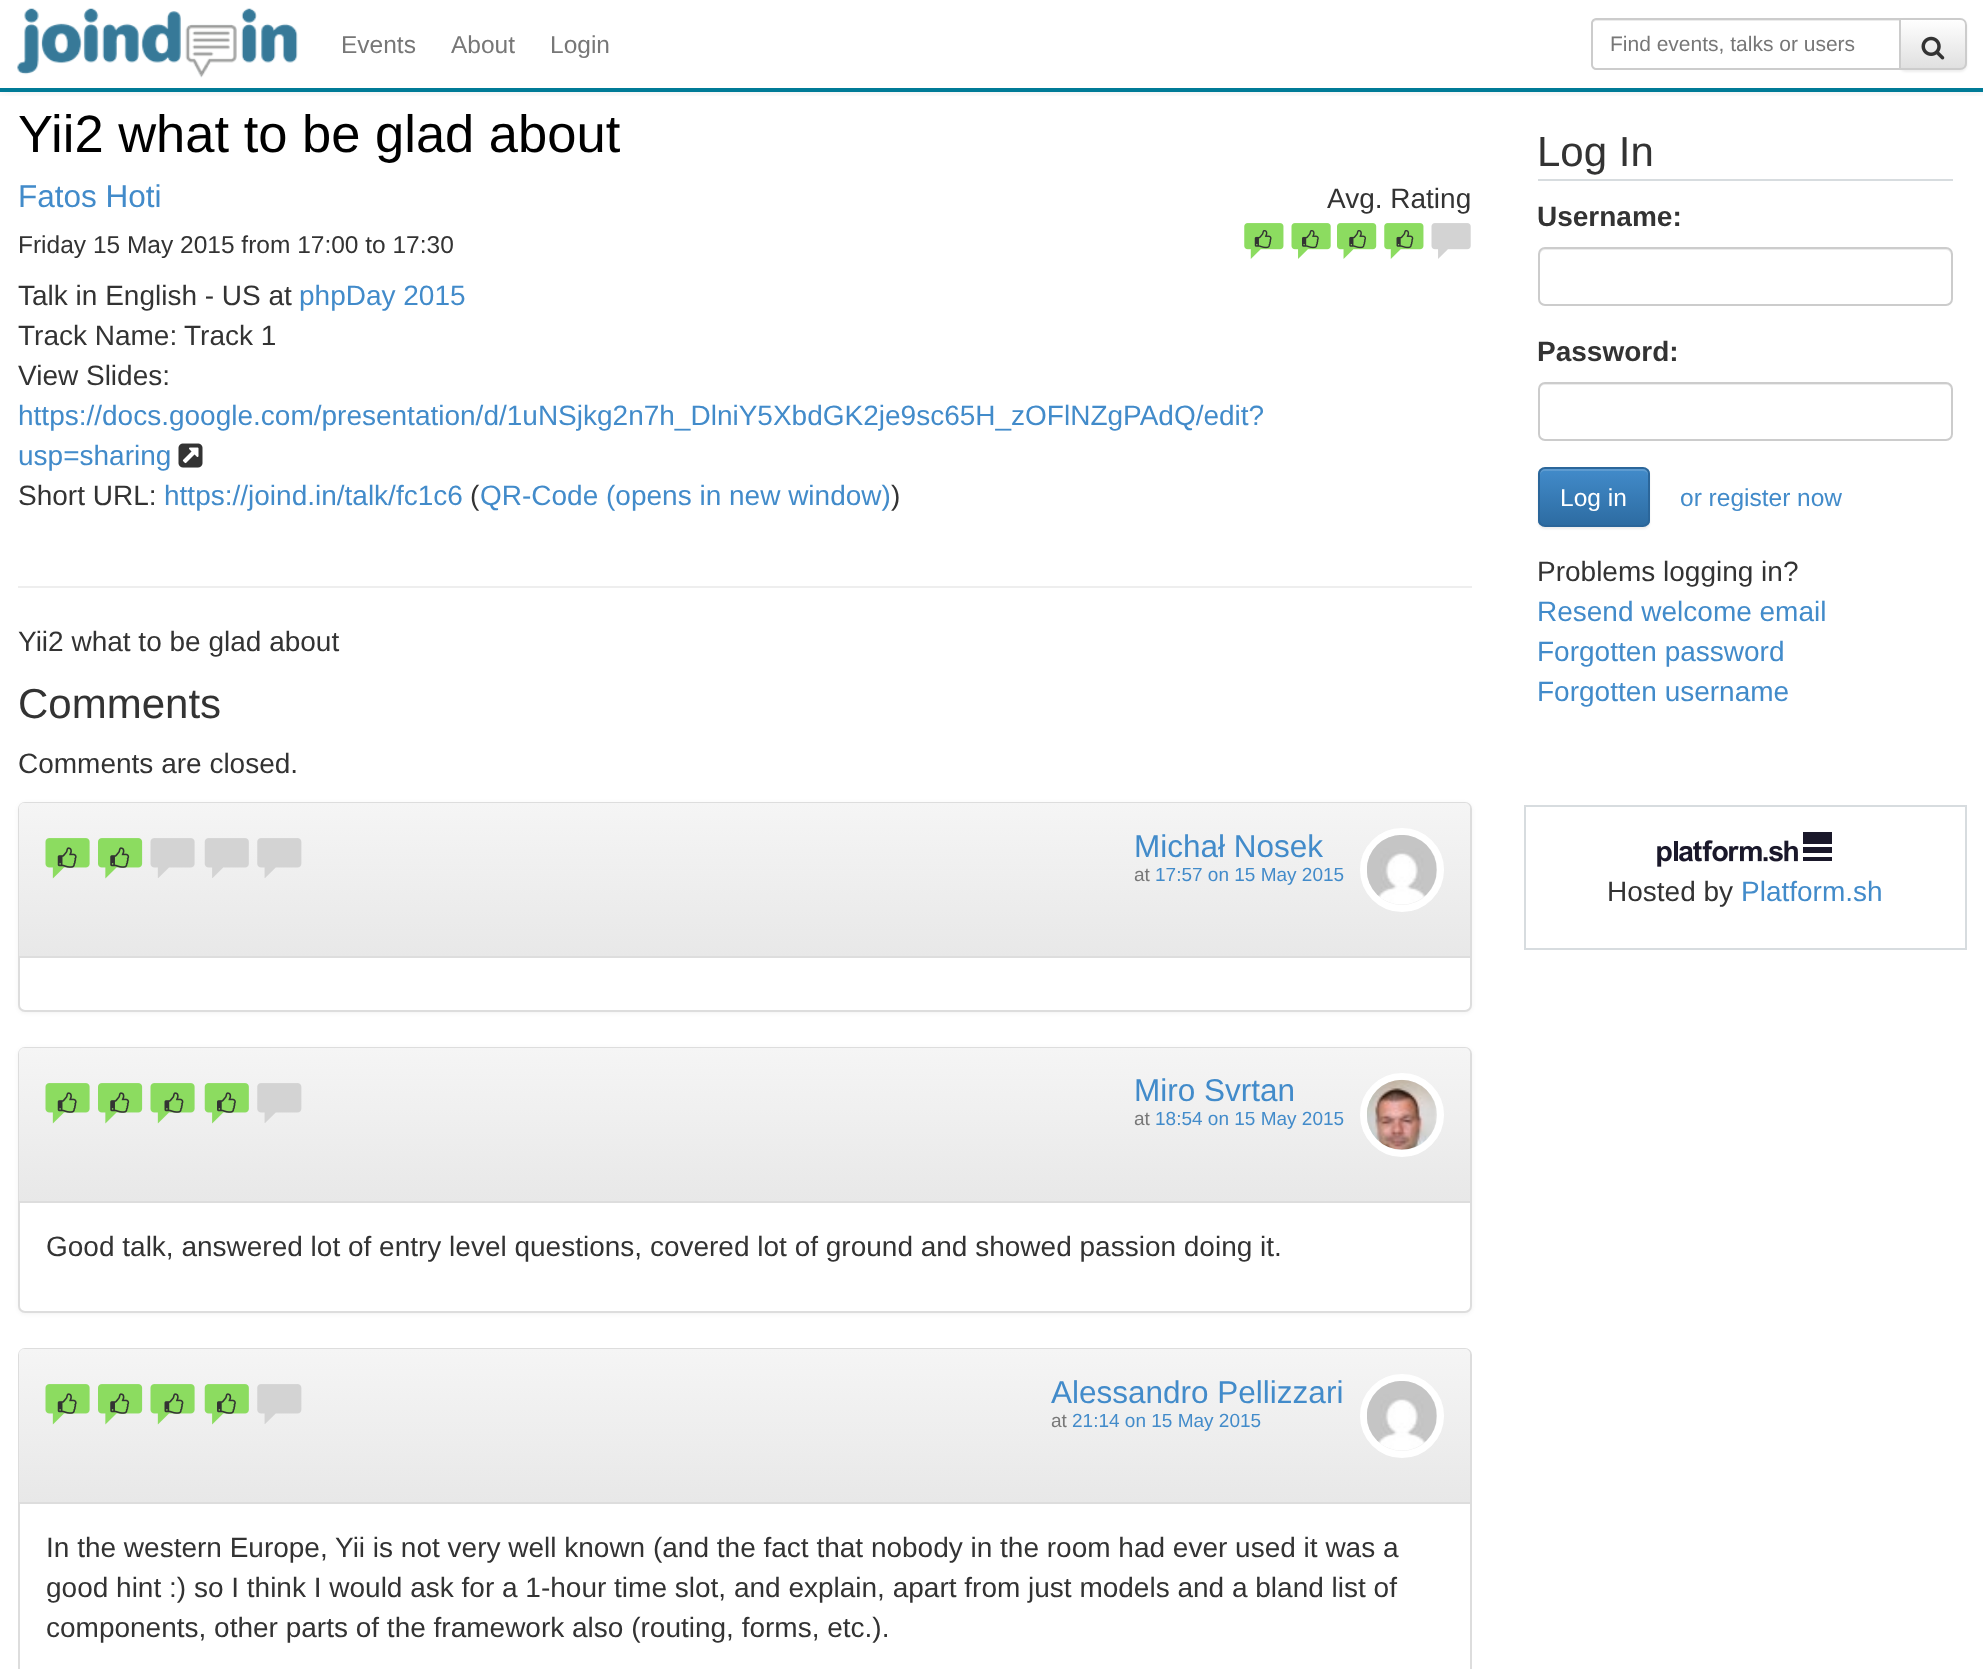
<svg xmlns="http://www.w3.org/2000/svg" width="1983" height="1669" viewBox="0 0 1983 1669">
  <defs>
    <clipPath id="clip1"><rect x="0" y="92" width="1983" height="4"/></clipPath>
    <clipPath id="clip2"><path d="M1899 18H1960C1964 18 1967 21 1967 25V63C1967 67 1964 70 1960 70H1899Z"/></clipPath>
    <linearGradient id="g1" gradientUnits="userSpaceOnUse" x1="1933" y1="19" x2="1933" y2="68"><stop offset="0" stop-color="rgb(255,255,255)"/><stop offset="1" stop-color="rgb(224,224,224)"/></linearGradient>
    <linearGradient id="g2" gradientUnits="userSpaceOnUse" x1="745" y1="803" x2="745" y2="956"><stop offset="0" stop-color="rgb(245,245,245)"/><stop offset="1" stop-color="rgb(232,232,232)"/></linearGradient>
    <linearGradient id="g3" gradientUnits="userSpaceOnUse" x1="745" y1="1048" x2="745" y2="1201"><stop offset="0" stop-color="rgb(245,245,245)"/><stop offset="1" stop-color="rgb(232,232,232)"/></linearGradient>
    <linearGradient id="g4" gradientUnits="userSpaceOnUse" x1="745" y1="1349" x2="745" y2="1502"><stop offset="0" stop-color="rgb(245,245,245)"/><stop offset="1" stop-color="rgb(232,232,232)"/></linearGradient>
    <clipPath id="clip3"><rect x="1538" y="467" width="112" height="60" rx="7"/></clipPath>
    <linearGradient id="g5" gradientUnits="userSpaceOnUse" x1="1594" y1="469" x2="1594" y2="525"><stop offset="0" stop-color="rgb(66,139,202)"/><stop offset="1" stop-color="rgb(45,108,162)"/></linearGradient>
  </defs>
  <rect width="100%" height="100%" fill="rgb(255,255,255)"/>
  <g clip-path="url(#clip1)">
    <rect x="0" y="2" width="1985" height="91" fill="rgba(0,0,0,0.07)" filter="blur(4.5px)"/>
  </g>
  <rect x="0" y="88" width="1983" height="4" fill="rgb(0,123,151)"/>
  <image x="17" y="8" width="281" height="70" href="pic1.png"/>
  <g font-family="Liberation Sans" font-size="24.5" fill="rgb(119,119,119)">
    <text x="341" y="53">Events</text>
    <text x="451" y="53">About</text>
    <text x="550" y="53">Login</text>
  </g>
  <rect x="1899" y="19" width="68" height="53" rx="7" fill="rgba(0,0,0,0.07)" filter="blur(1px)"/>
  <g clip-path="url(#clip2)">
    <rect x="1901" y="19" width="66" height="49" fill="url(#g1)"/>
  </g>
  <path d="M1900 19H1960C1963.5 19 1966 21.5 1966 25V63C1966 66.5 1963.5 69 1960 69H1900Z" fill="none" stroke="rgb(204,204,204)" stroke-width="2"/>
  <path d="M1596 18H1901V70H1596C1593 70 1591 68 1591 65V23C1591 20 1593 18 1596 18Z" fill="rgb(255,255,255)"/>
  <path d="M1596 21H1899V19H1597C1595 19 1593 20 1593 22Z" fill="rgb(236,236,236)"/>
  <path d="M1596 19H1900V69H1596C1594 69 1592 67 1592 65V23C1592 21 1594 19 1596 19Z" fill="none" stroke="rgb(204,204,204)" stroke-width="2"/>
  <text x="1610" y="51" font-family="Liberation Sans" font-size="21" fill="rgb(119,119,119)">Find events, talks or users</text>
  <image x="1921" y="36" width="24" height="24" href="pic2.png"/>
  <rect x="18" y="586" width="1454" height="2" fill="rgb(238,238,238)"/>
  <text x="18" y="152" font-family="Liberation Sans" font-size="52.5" fill="rgb(0,0,0)">Yii2 what to be glad about</text>
  <text x="18" y="207" font-family="Liberation Sans" font-size="31.5" fill="rgb(66,139,202)">Fatos Hoti</text>
  <text x="18" y="253" font-family="Liberation Sans" font-size="24.5" fill="rgb(51,51,51)">Friday 15 May 2015 from 17:00 to 17:30</text>
  <text x="18" y="305" font-family="Liberation Sans" font-size="28" fill="rgb(51,51,51)">Talk in English - US at</text>
  <text x="299" y="305" font-family="Liberation Sans" font-size="28" fill="rgb(66,139,202)">phpDay 2015</text>
  <g font-family="Liberation Sans" font-size="28" fill="rgb(51,51,51)">
    <text x="18" y="345">Track Name:</text>
    <text x="184" y="345">Track 1</text>
    <text x="18" y="385">View Slides:</text>
  </g>
  <g font-family="Liberation Sans" font-size="28" fill="rgb(66,139,202)">
    <text>
      <tspan x="18" y="425">https://docs.google.com/presentation/d/1uNSjkg2n7h_DlniY5XbdGK2je9sc65H_zOFlNZgPAdQ/edit?</tspan>
      <tspan x="18" y="465">usp=sharing</tspan>
    </text>
  </g>
  <image x="178" y="443" width="25" height="25" href="pic3.png"/>
  <text x="18" y="505" font-family="Liberation Sans" font-size="28" fill="rgb(51,51,51)">Short URL:</text>
  <text x="164" y="505" font-family="Liberation Sans" font-size="28" fill="rgb(66,139,202)">https://joind.in/talk/fc1c6</text>
  <text x="470" y="505" font-family="Liberation Sans" font-size="28" fill="rgb(51,51,51)">(</text>
  <text x="480" y="505" font-family="Liberation Sans" font-size="28" fill="rgb(66,139,202)">QR-Code (opens in new window)</text>
  <g font-family="Liberation Sans" font-size="28" fill="rgb(51,51,51)">
    <text x="891" y="505">)</text>
    <text x="1327" y="208">Avg. Rating</text>
  </g>
  <image x="1244" y="223" width="40" height="36" href="pic4.png"/>
  <image x="1254" y="230" width="18" height="19" href="pic5.png"/>
  <image x="1291" y="223" width="40" height="36" href="pic6.png"/>
  <image x="1302" y="230" width="17" height="19" href="pic7.png"/>
  <image x="1337" y="223" width="40" height="36" href="pic8.png"/>
  <image x="1349" y="230" width="17" height="19" href="pic9.png"/>
  <image x="1384" y="223" width="40" height="36" href="pic4.png"/>
  <image x="1396" y="230" width="18" height="19" href="pic10.png"/>
  <image x="1431" y="223" width="40" height="36" href="pic11.png"/>
  <text x="18" y="651" font-family="Liberation Sans" font-size="28" fill="rgb(51,51,51)">Yii2 what to be glad about</text>
  <text x="18" y="718" font-family="Liberation Sans" font-size="42" fill="rgb(51,51,51)">Comments</text>
  <text x="18" y="773" font-family="Liberation Sans" font-size="28" fill="rgb(51,51,51)">Comments are closed.</text>
  <rect x="18" y="803" width="1454" height="210" rx="7" fill="rgba(0,0,0,0.05)" filter="blur(2px)"/>
  <rect x="19" y="803" width="1452" height="208" rx="6" fill="rgb(255,255,255)" stroke="rgb(221,221,221)" stroke-width="2"/>
  <path d="M24 803H1465C1468 803 1470 805 1470 808V956H19V808C19 805 21 803 24 803Z" fill="url(#g2)"/>
  <rect x="19" y="956" width="1451" height="2" fill="rgb(221,221,221)"/>
  <image x="45" y="838" width="45" height="41" href="pic12.png"/>
  <image x="57" y="847" width="20" height="21" href="pic13.png"/>
  <image x="98" y="838" width="45" height="41" href="pic14.png"/>
  <image x="110" y="847" width="20" height="21" href="pic15.png"/>
  <image x="150" y="838" width="45" height="40" href="pic16.png"/>
  <image x="204" y="838" width="45" height="40" href="pic17.png"/>
  <image x="257" y="838" width="45" height="40" href="pic18.png"/>
  <text x="1134" y="857" font-family="Liberation Sans" font-size="31.5" fill="rgb(66,139,202)">Michał Nosek</text>
  <text x="1134" y="881" font-family="Liberation Sans" font-size="19" fill="rgb(119,119,119)">at</text>
  <text x="1155" y="881" font-family="Liberation Sans" font-size="19" fill="rgb(66,139,202)">17:57 on 15 May 2015</text>
  <circle cx="1402" cy="870" r="38.5" fill="none" stroke="rgb(255,255,255)" stroke-width="7"/>
  <image x="1367" y="835" width="70" height="70" href="pic19.png"/>
  <rect x="18" y="1048" width="1454" height="266" rx="7" fill="rgba(0,0,0,0.05)" filter="blur(2px)"/>
  <rect x="19" y="1048" width="1452" height="264" rx="6" fill="rgb(255,255,255)" stroke="rgb(221,221,221)" stroke-width="2"/>
  <path d="M24 1048H1465C1468 1048 1470 1050 1470 1053V1201H19V1053C19 1050 21 1048 24 1048Z" fill="url(#g3)"/>
  <rect x="19" y="1201" width="1451" height="2" fill="rgb(221,221,221)"/>
  <image x="45" y="1083" width="45" height="41" href="pic12.png"/>
  <image x="57" y="1092" width="20" height="21" href="pic13.png"/>
  <image x="98" y="1083" width="45" height="41" href="pic14.png"/>
  <image x="110" y="1092" width="20" height="21" href="pic15.png"/>
  <image x="150" y="1083" width="45" height="41" href="pic12.png"/>
  <image x="164" y="1092" width="20" height="21" href="pic20.png"/>
  <image x="204" y="1083" width="45" height="41" href="pic21.png"/>
  <image x="217" y="1092" width="19" height="21" href="pic22.png"/>
  <image x="257" y="1083" width="45" height="40" href="pic18.png"/>
  <text x="1134" y="1101" font-family="Liberation Sans" font-size="31.5" fill="rgb(66,139,202)">Miro Svrtan</text>
  <text x="1134" y="1125" font-family="Liberation Sans" font-size="19" fill="rgb(119,119,119)">at</text>
  <text x="1155" y="1125" font-family="Liberation Sans" font-size="19" fill="rgb(66,139,202)">18:54 on 15 May 2015</text>
  <circle cx="1402" cy="1115" r="38.5" fill="none" stroke="rgb(255,255,255)" stroke-width="7"/>
  <image x="1367" y="1079" width="70" height="71" href="pic23.png"/>
  <text x="46" y="1256" font-family="Liberation Sans" font-size="28" fill="rgb(51,51,51)">Good talk, answered lot of entry level questions, covered lot of ground and showed passion doing it.</text>
  <rect x="19" y="1349" width="1452" height="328" rx="6" fill="none" stroke="rgb(221,221,221)" stroke-width="2"/>
  <path d="M24 1349H1465C1468 1349 1470 1351 1470 1354V1502H19V1354C19 1351 21 1349 24 1349Z" fill="url(#g4)"/>
  <rect x="19" y="1502" width="1451" height="2" fill="rgb(221,221,221)"/>
  <image x="45" y="1384" width="45" height="41" href="pic12.png"/>
  <image x="57" y="1393" width="20" height="21" href="pic13.png"/>
  <image x="98" y="1384" width="45" height="41" href="pic14.png"/>
  <image x="110" y="1393" width="20" height="21" href="pic15.png"/>
  <image x="150" y="1384" width="45" height="41" href="pic12.png"/>
  <image x="164" y="1393" width="20" height="21" href="pic20.png"/>
  <image x="204" y="1384" width="45" height="41" href="pic21.png"/>
  <image x="217" y="1393" width="19" height="21" href="pic22.png"/>
  <image x="257" y="1384" width="45" height="40" href="pic18.png"/>
  <text x="1051" y="1403" font-family="Liberation Sans" font-size="31.5" fill="rgb(66,139,202)">Alessandro Pellizzari</text>
  <text x="1051" y="1427" font-family="Liberation Sans" font-size="19" fill="rgb(119,119,119)">at</text>
  <text x="1072" y="1427" font-family="Liberation Sans" font-size="19" fill="rgb(66,139,202)">21:14 on 15 May 2015</text>
  <circle cx="1402" cy="1416" r="38.5" fill="none" stroke="rgb(255,255,255)" stroke-width="7"/>
  <image x="1367" y="1381" width="70" height="70" href="pic19.png"/>
  <g font-family="Liberation Sans" font-size="28" fill="rgb(51,51,51)">
    <text>
      <tspan x="46" y="1557">In the western Europe, Yii is not very well known (and the fact that nobody in the room had ever used it was a</tspan>
      <tspan x="46" y="1597">good hint :) so I think I would ask for a 1-hour time slot, and explain, apart from just models and a bland list of</tspan>
      <tspan x="46" y="1637">components, other parts of the framework also (routing, forms, etc.).</tspan>
    </text>
  </g>
  <rect x="1538" y="179" width="415" height="2" fill="rgb(215,220,223)"/>
  <text x="1537" y="166" font-family="Liberation Sans" font-size="42" fill="rgb(51,51,51)">Log In</text>
  <text x="1537" y="226" font-family="Liberation Sans" font-size="28" font-weight="bold" fill="rgb(51,51,51)">Username:</text>
  <path d="M1545 250H1946C1949 250 1951 253 1951 256V254C1951 251 1949 249 1946 249H1545C1542 249 1540 251 1540 254V256C1540 253 1542 250 1545 250Z" fill="rgb(236,236,236)"/>
  <rect x="1539" y="248" width="413" height="57" rx="6" fill="none" stroke="rgb(204,204,204)" stroke-width="2"/>
  <text x="1537" y="361" font-family="Liberation Sans" font-size="28" font-weight="bold" fill="rgb(51,51,51)">Password:</text>
  <path d="M1545 385H1946C1949 385 1951 387 1951 390V388C1951 385 1949 383 1946 383H1545C1542 383 1540 385 1540 388V390C1540 387 1542 385 1545 385Z" fill="rgb(236,236,236)"/>
  <rect x="1539" y="383" width="413" height="57" rx="6" fill="none" stroke="rgb(204,204,204)" stroke-width="2"/>
  <rect x="1538" y="469" width="112" height="60" rx="7" fill="rgba(0,0,0,0.07)" filter="blur(1px)"/>
  <g clip-path="url(#clip3)">
    <rect x="1538" y="469" width="112" height="56" fill="url(#g5)"/>
  </g>
  <path d="M1545 471H1643C1650 471 1648 480 1648 484V523C1649 522 1649 521 1649 520V474C1649 471 1647 469 1644 469H1545C1542 469 1540 471 1540 474V476C1540 473 1542 471 1545 471Z" fill="rgba(255,255,255,0.15)"/>
  <rect x="1539" y="468" width="110" height="58" rx="6" fill="none" stroke="rgb(43,102,154)" stroke-width="2"/>
  <text x="1560" y="506" font-family="Liberation Sans" font-size="24.5" fill="rgb(255,255,255)">Log in</text>
  <text x="1680" y="506" font-family="Liberation Sans" font-size="24.5" fill="rgb(66,139,202)">or register now</text>
  <text x="1537" y="581" font-family="Liberation Sans" font-size="28" fill="rgb(51,51,51)">Problems logging in?</text>
  <g font-family="Liberation Sans" font-size="28" fill="rgb(66,139,202)">
    <text>
      <tspan x="1537" y="621">Resend welcome email</tspan>
      <tspan x="1537" y="661">Forgotten password</tspan>
      <tspan x="1537" y="701">Forgotten username</tspan>
    </text>
  </g>
  <rect x="1525" y="806" width="441" height="143" fill="none" stroke="rgb(215,220,223)" stroke-width="2"/>
  <image x="1657" y="832" width="175" height="35" href="pic24.png"/>
  <text x="1607" y="901" font-family="Liberation Sans" font-size="28" fill="rgb(51,51,51)">Hosted by</text>
  <text x="1741" y="901" font-family="Liberation Sans" font-size="28" fill="rgb(66,139,202)">Platform.sh</text>
</svg>
